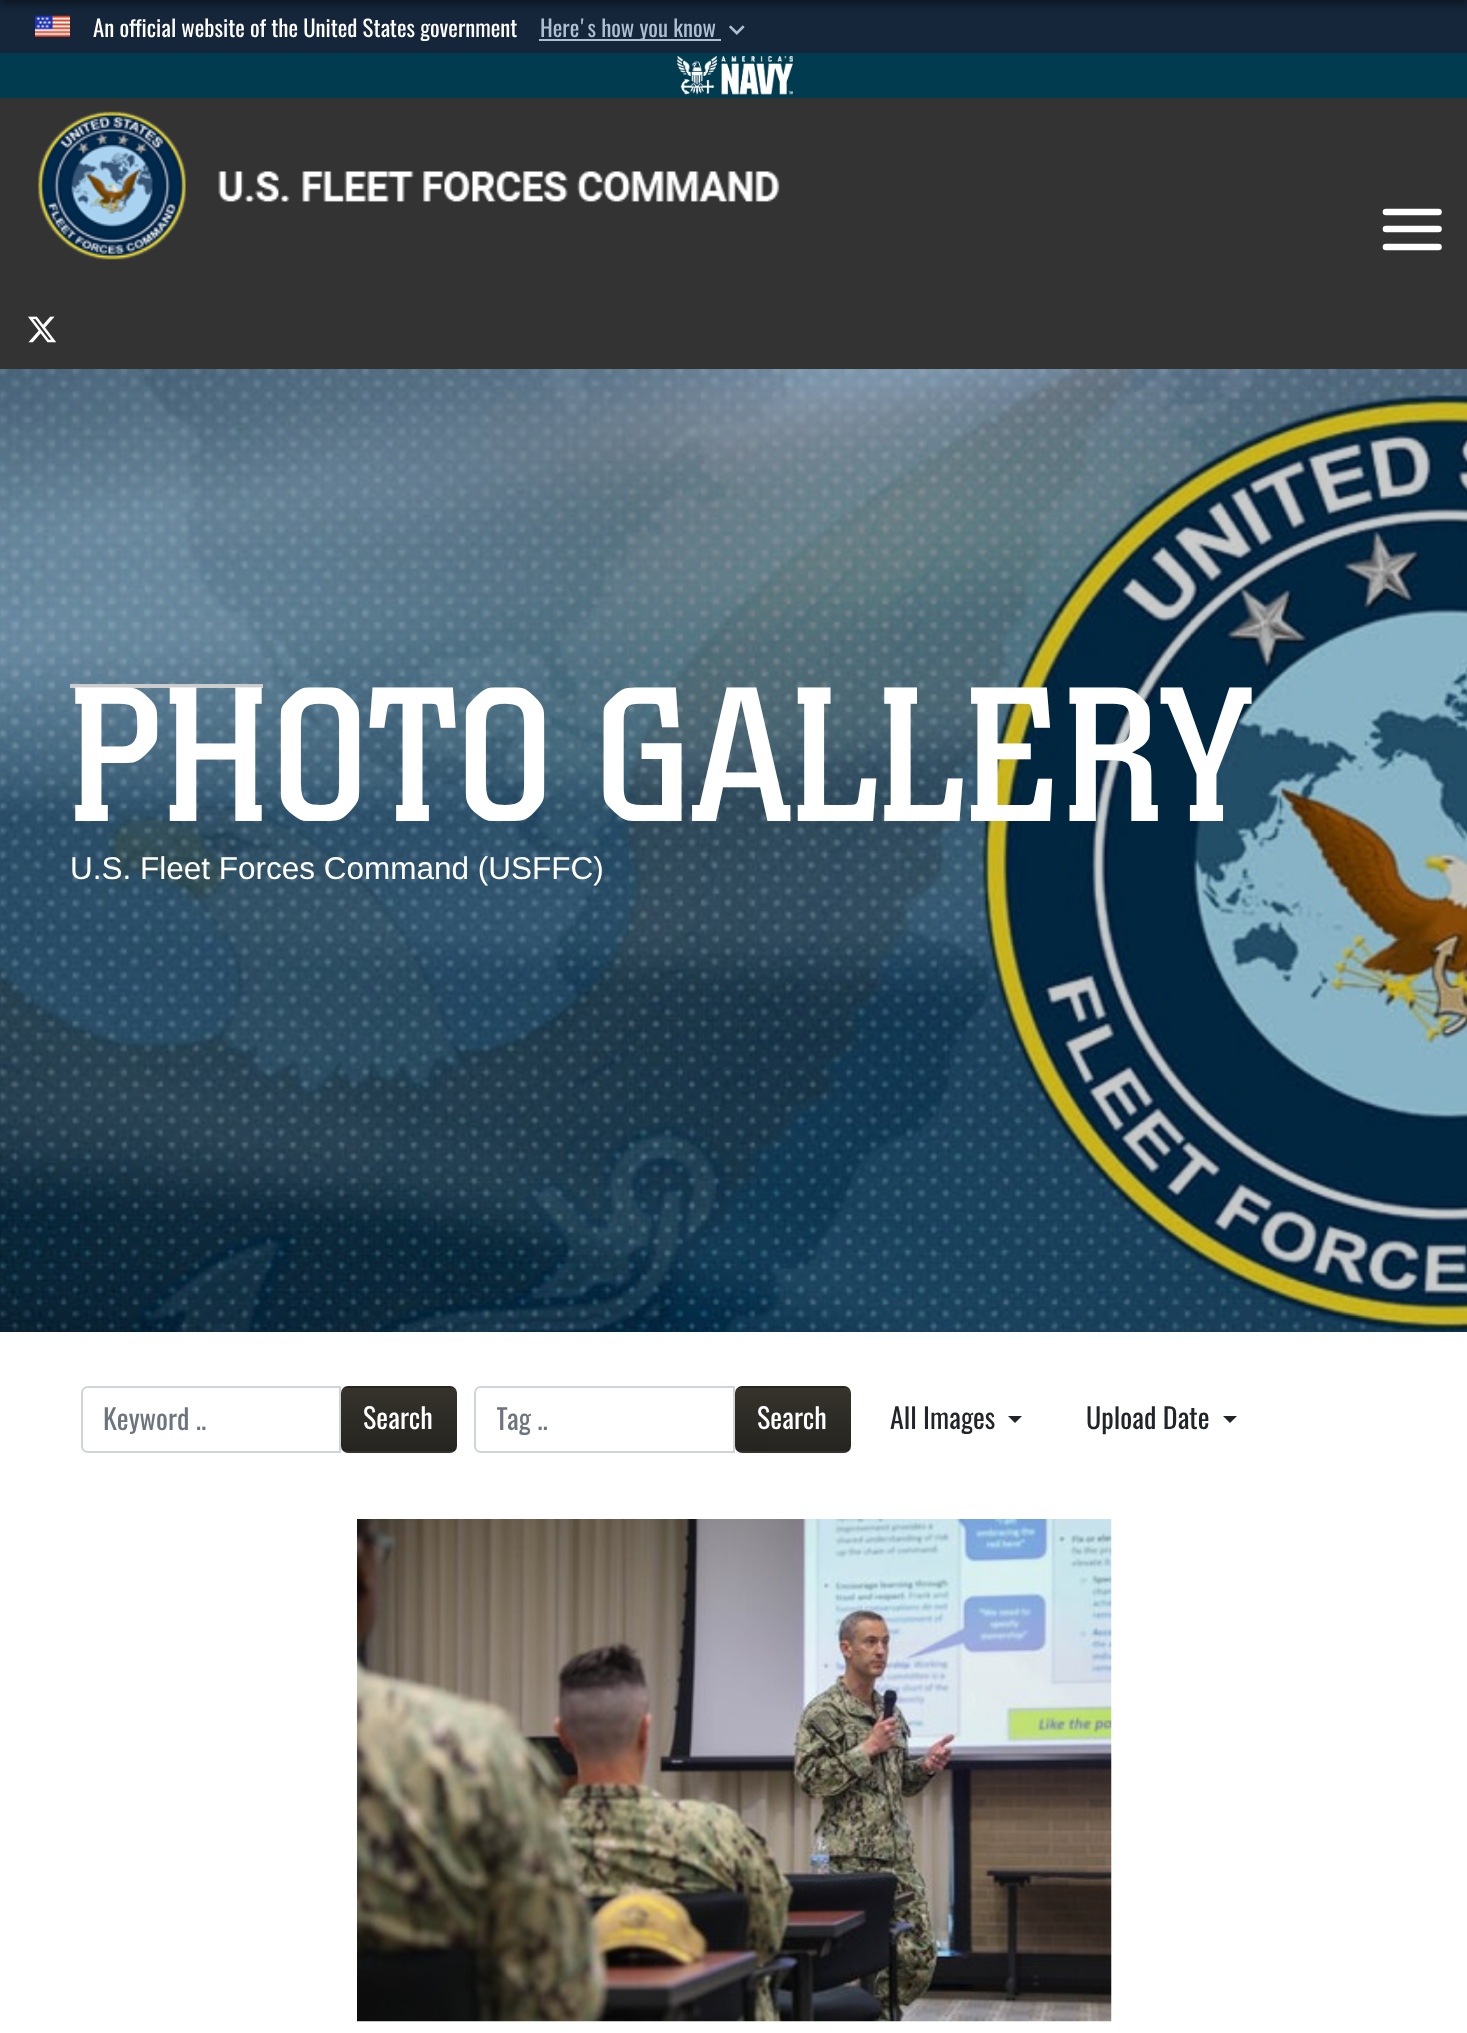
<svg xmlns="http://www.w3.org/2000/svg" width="1467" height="2033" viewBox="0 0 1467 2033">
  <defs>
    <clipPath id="clip1"><rect x="341" y="1386" width="116" height="67" rx="7"/></clipPath>
    <linearGradient id="g1" gradientUnits="userSpaceOnUse" x1="399" y1="1325" x2="399" y2="1388"><stop offset="0" stop-color="rgb(54,51,44)"/><stop offset="0.99" stop-color="rgb(37,36,32)"/></linearGradient>
    <linearGradient id="g2" gradientUnits="userSpaceOnUse" x1="399" y1="1388" x2="399" y2="1451"><stop offset="0" stop-color="rgb(54,51,44)"/><stop offset="0.99" stop-color="rgb(37,36,32)"/></linearGradient>
    <linearGradient id="g3" gradientUnits="userSpaceOnUse" x1="399" y1="1451" x2="399" y2="1514"><stop offset="0" stop-color="rgb(54,51,44)"/><stop offset="0.99" stop-color="rgb(37,36,32)"/></linearGradient>
    <clipPath id="clip2"><rect x="497" y="1400" width="215" height="37"/></clipPath>
    <clipPath id="clip3"><rect x="735" y="1386" width="116" height="67" rx="7"/></clipPath>
    <linearGradient id="g4" gradientUnits="userSpaceOnUse" x1="793" y1="1325" x2="793" y2="1388"><stop offset="0" stop-color="rgb(54,51,44)"/><stop offset="0.99" stop-color="rgb(37,36,32)"/></linearGradient>
    <linearGradient id="g5" gradientUnits="userSpaceOnUse" x1="793" y1="1388" x2="793" y2="1451"><stop offset="0" stop-color="rgb(54,51,44)"/><stop offset="0.99" stop-color="rgb(37,36,32)"/></linearGradient>
    <linearGradient id="g6" gradientUnits="userSpaceOnUse" x1="793" y1="1451" x2="793" y2="1514"><stop offset="0" stop-color="rgb(54,51,44)"/><stop offset="0.99" stop-color="rgb(37,36,32)"/></linearGradient>
  </defs>
  <rect width="100%" height="100%" fill="rgb(255,255,255)"/>
  <rect x="0" y="0" width="1467" height="53" fill="rgb(21,38,59)"/>
  <image x="35" y="15" width="35" height="22" href="pic1.png"/>
  <text x="93" y="37" font-family="Oswald" font-size="22.75" fill="rgb(255,255,255)">An official website of the United States government</text>
  <rect x="539" y="39" width="182" height="2" fill="rgb(174,191,212)"/>
  <text x="540" y="37" font-family="Oswald" font-size="22.75" fill="rgb(174,191,212)">Here's how you know</text>
  <image x="729" y="25" width="16" height="10" href="pic2.png"/>
  <rect x="0" y="-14" width="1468" height="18" fill="rgba(2,4,6,0.5)" filter="blur(4.5px)"/>
  <rect x="0" y="53" width="1467" height="45" fill="rgb(0,59,79)"/>
  <image x="677" y="56" width="116" height="39" href="pic3.png"/>
  <rect x="0" y="98" width="1467" height="271" fill="rgb(51,51,51)"/>
  <image x="38" y="111" width="742" height="149" href="pic4.png"/>
  <image x="28" y="316" width="29" height="27" href="pic5.png"/>
  <path d="M1386 212H1438.5M1386 229H1438.5M1386 247H1438.5" fill="none" stroke="rgb(255,255,255)" stroke-width="6.6" stroke-linecap="round"/>
  <image x="0" y="369" width="1467" height="963" href="pic6.png"/>
  <rect x="70" y="684" width="193" height="4" fill="rgb(204,204,204)"/>
  <text x="70" y="821" font-family="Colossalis" font-size="189" fill="rgb(255,255,255)">PHOTO GALLERY</text>
  <text x="70" y="879" font-family="Liberation Sans" font-size="31.5" fill="rgb(255,255,255)">U.S. Fleet Forces Command (USFFC)</text>
  <path d="M88 1387H340V1452H88C84.5 1452 82 1449.5 82 1446V1393C82 1389.5 84.5 1387 88 1387Z" fill="none" stroke="rgb(206,212,218)" stroke-width="2"/>
  <text x="103" y="1430" font-family="Oswald" font-size="28" fill="rgb(108,117,125)">Keyword ..</text>
  <g clip-path="url(#clip1)">
    <rect x="341" y="1386" width="116" height="2" fill="url(#g1)"/>
    <rect x="341" y="1388" width="116" height="63" fill="url(#g2)"/>
    <rect x="341" y="1451" width="116" height="2" fill="url(#g3)"/>
  </g>
  <text x="363" y="1429" font-family="Oswald" font-size="28" fill="rgb(255,255,255)">Search</text>
  <path d="M481 1387H734V1452H481C477.5 1452 475 1449.5 475 1446V1393C475 1389.5 477.5 1387 481 1387Z" fill="none" stroke="rgb(206,212,218)" stroke-width="2"/>
  <g clip-path="url(#clip2)">
    <text x="496" y="1430" font-family="Oswald" font-size="28" fill="rgb(108,117,125)">Tag ..</text>
  </g>
  <g clip-path="url(#clip3)">
    <rect x="735" y="1386" width="116" height="2" fill="url(#g4)"/>
    <rect x="735" y="1388" width="116" height="63" fill="url(#g5)"/>
    <rect x="735" y="1451" width="116" height="2" fill="url(#g6)"/>
  </g>
  <text x="757" y="1429" font-family="Oswald" font-size="28" fill="rgb(255,255,255)">Search</text>
  <text x="890" y="1429" font-family="Oswald" font-size="28" fill="rgb(33,37,41)">All Images</text>
  <path d="M1008 1416H1022L1015 1423Z" fill="rgb(33,37,41)"/>
  <text x="1086" y="1429" font-family="Oswald" font-size="28" fill="rgb(33,37,41)">Upload Date</text>
  <path d="M1223 1416H1237L1230 1423Z" fill="rgb(33,37,41)"/>
  <image x="357" y="1519" width="755" height="503" href="pic7.png"/>
</svg>
